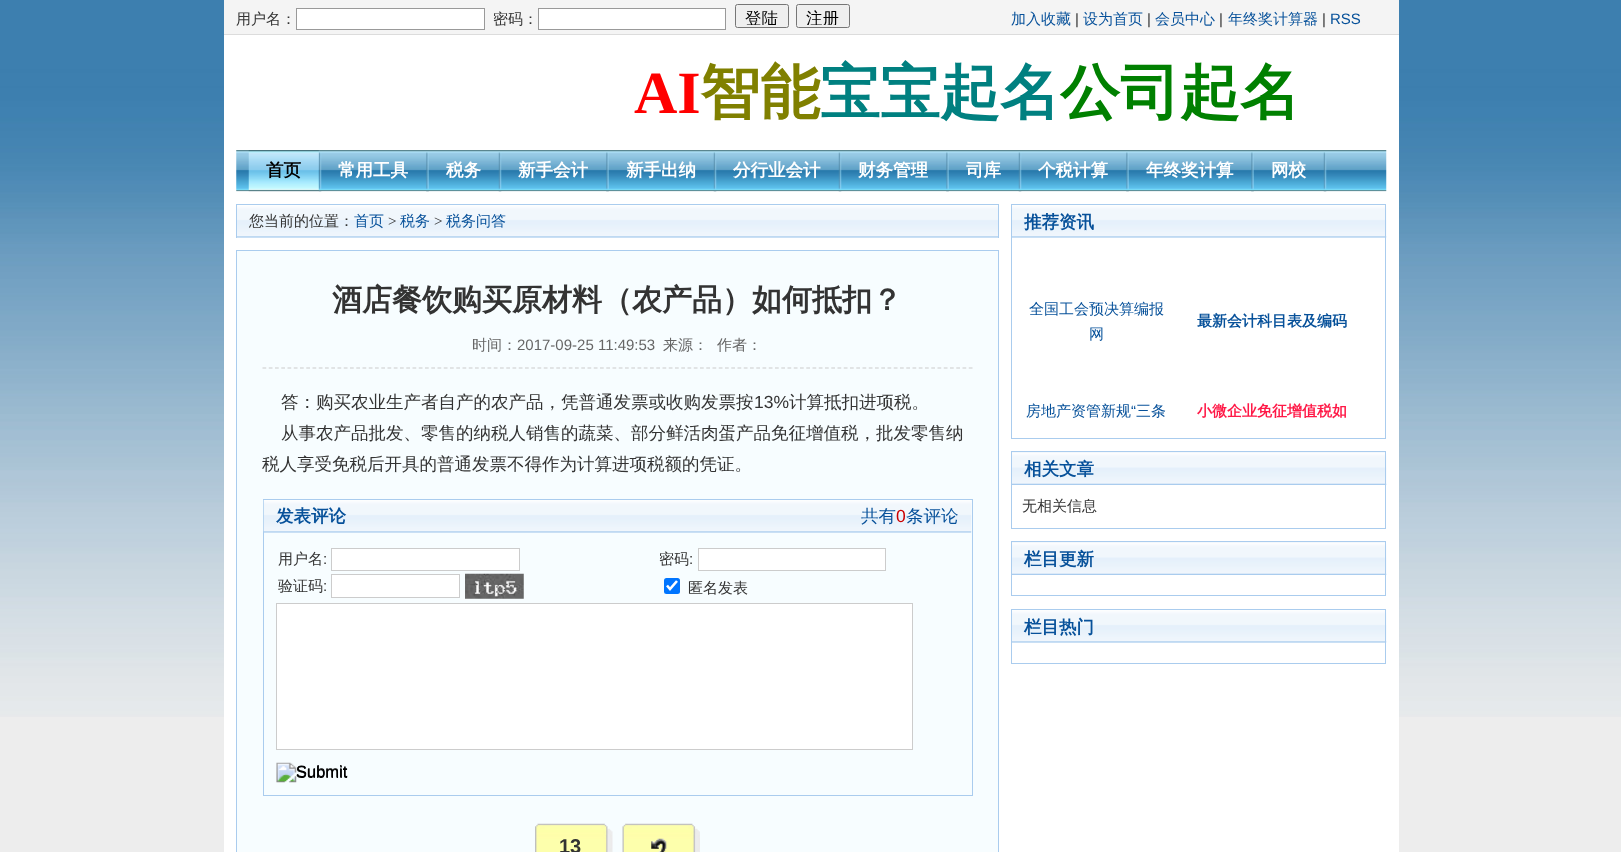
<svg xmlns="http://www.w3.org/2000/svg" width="1621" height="852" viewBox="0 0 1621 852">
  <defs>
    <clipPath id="clip1"><rect x="738" y="6" width="48" height="19"/></clipPath>
    <clipPath id="clip2"><rect x="799" y="6" width="49" height="19"/></clipPath>
  </defs>
  <rect width="100%" height="100%" fill="rgb(237,237,237)"/>
  <image x="0" y="0" width="1621" height="717" href="pic1.png"/>
  <rect x="224" y="35" width="1175" height="817" fill="rgb(255,255,255)"/>
  <rect x="224" y="34" width="1175" height="1" fill="rgb(220,220,220)"/>
  <rect x="224" y="0" width="1175" height="34" fill="rgb(244,244,244)"/>
  <text x="236" y="24" font-family="WenQuanYi Zen Hei" font-size="15" font-weight="500" fill="rgb(51,51,51)">用户名：</text>
  <rect x="296.5" y="8.5" width="188" height="21" fill="rgb(255,255,255)" stroke="rgb(153,153,153)"/>
  <text x="493" y="24" font-family="WenQuanYi Zen Hei" font-size="15" font-weight="500" fill="rgb(51,51,51)">密码：</text>
  <rect x="538.5" y="8.5" width="187" height="21" fill="rgb(255,255,255)" stroke="rgb(153,153,153)"/>
  <rect x="735.5" y="4.5" width="53" height="23" rx="2" fill="rgb(239,239,239)" stroke="rgb(118,118,118)"/>
  <g clip-path="url(#clip1)">
    <text x="745" y="24" font-family="WenQuanYi Zen Hei" font-size="16.5" font-weight="500" fill="rgb(0,0,0)">登陆</text>
  </g>
  <rect x="796.5" y="4.5" width="53" height="23" rx="2" fill="rgb(239,239,239)" stroke="rgb(118,118,118)"/>
  <g clip-path="url(#clip2)">
    <text x="806" y="24" font-family="WenQuanYi Zen Hei" font-size="16.5" font-weight="500" fill="rgb(0,0,0)">注册</text>
  </g>
  <text x="1011" y="24" font-family="WenQuanYi Zen Hei" font-size="15" font-weight="500" fill="rgb(7,81,154)">加入收藏</text>
  <text x="1075" y="24" font-family="Liberation Sans" font-size="15" fill="rgb(51,51,51)">|</text>
  <text x="1083" y="24" font-family="WenQuanYi Zen Hei" font-size="15" font-weight="500" fill="rgb(7,81,154)">设为首页</text>
  <text x="1147" y="24" font-family="Liberation Sans" font-size="15" fill="rgb(51,51,51)">|</text>
  <text x="1155" y="24" font-family="WenQuanYi Zen Hei" font-size="15" font-weight="500" fill="rgb(7,81,154)">会员中心</text>
  <text x="1219" y="24" font-family="Liberation Sans" font-size="15" fill="rgb(51,51,51)">|</text>
  <text x="1228" y="24" font-family="WenQuanYi Zen Hei" font-size="15" font-weight="500" fill="rgb(7,81,154)">年终奖计算器</text>
  <text x="1322" y="24" font-family="Liberation Sans" font-size="15" fill="rgb(51,51,51)">|</text>
  <text x="1330" y="24" font-family="Liberation Sans" font-size="15" fill="rgb(7,81,154)">RSS</text>
  <text x="634" y="113" font-family="Liberation Serif" font-size="60" font-weight="bold" fill="rgb(255,0,0)">AI</text>
  <text x="700" y="113" font-family="WenQuanYi Zen Hei" font-size="60" font-weight="bold" fill="rgb(128,128,0)">智能</text>
  <text x="820" y="113" font-family="WenQuanYi Zen Hei" font-size="60" font-weight="bold" fill="rgb(0,128,128)">宝宝起名</text>
  <text x="1060" y="113" font-family="WenQuanYi Zen Hei" font-size="60" font-weight="bold" fill="rgb(0,128,0)">公司起名</text>
  <image x="236" y="150" width="1151" height="42" href="pic2.png"/>
  <image x="318" y="152" width="4" height="40" href="pic3.png"/>
  <image x="248" y="150" width="71" height="42" href="pic4.png"/>
  <text x="266" y="176" font-family="WenQuanYi Zen Hei" font-size="17.5" font-weight="bold" fill="rgb(0,0,0)">首页</text>
  <image x="426" y="152" width="3" height="40" href="pic5.png"/>
  <text x="338" y="176" font-family="WenQuanYi Zen Hei" font-size="17.5" font-weight="bold" fill="rgb(255,255,255)">常用工具</text>
  <image x="498" y="152" width="4" height="40" href="pic3.png"/>
  <text x="446" y="176" font-family="WenQuanYi Zen Hei" font-size="17.5" font-weight="bold" fill="rgb(255,255,255)">税务</text>
  <image x="606" y="152" width="3" height="40" href="pic5.png"/>
  <text x="518" y="176" font-family="WenQuanYi Zen Hei" font-size="17.5" font-weight="bold" fill="rgb(255,255,255)">新手会计</text>
  <image x="713" y="152" width="4" height="40" href="pic3.png"/>
  <text x="626" y="176" font-family="WenQuanYi Zen Hei" font-size="17.5" font-weight="bold" fill="rgb(255,255,255)">新手出纳</text>
  <image x="838" y="152" width="4" height="40" href="pic3.png"/>
  <text x="733" y="176" font-family="WenQuanYi Zen Hei" font-size="17.5" font-weight="bold" fill="rgb(255,255,255)">分行业会计</text>
  <image x="946" y="152" width="3" height="40" href="pic5.png"/>
  <text x="858" y="176" font-family="WenQuanYi Zen Hei" font-size="17.5" font-weight="bold" fill="rgb(255,255,255)">财务管理</text>
  <image x="1018" y="152" width="4" height="40" href="pic3.png"/>
  <text x="966" y="176" font-family="WenQuanYi Zen Hei" font-size="17.5" font-weight="bold" fill="rgb(255,255,255)">司库</text>
  <image x="1126" y="152" width="3" height="40" href="pic5.png"/>
  <text x="1038" y="176" font-family="WenQuanYi Zen Hei" font-size="17.5" font-weight="bold" fill="rgb(255,255,255)">个税计算</text>
  <image x="1251" y="152" width="3" height="40" href="pic5.png"/>
  <text x="1146" y="176" font-family="WenQuanYi Zen Hei" font-size="17.5" font-weight="bold" fill="rgb(255,255,255)">年终奖计算</text>
  <image x="1323" y="152" width="4" height="40" href="pic3.png"/>
  <text x="1271" y="176" font-family="WenQuanYi Zen Hei" font-size="17.5" font-weight="bold" fill="rgb(255,255,255)">网校</text>
  <rect x="237" y="237" width="761" height="1" fill="rgb(233,242,251)"/>
  <image x="237" y="205" width="761" height="33" href="pic6.png"/>
  <rect x="236" y="204" width="763" height="1" fill="rgb(170,204,238)"/>
  <rect x="998" y="204" width="1" height="34" fill="rgb(170,204,238)"/>
  <rect x="236" y="204" width="1" height="34" fill="rgb(170,204,238)"/>
  <text x="249" y="226" font-family="WenQuanYi Zen Hei" font-size="15" font-weight="500" fill="rgb(51,51,51)">您当前的位置：</text>
  <text x="354" y="226" font-family="WenQuanYi Zen Hei" font-size="15" font-weight="500" fill="rgb(7,81,154)">首页</text>
  <text x="388" y="226" font-family="Liberation Serif" font-size="15" fill="rgb(51,51,51)">&gt;</text>
  <text x="400" y="226" font-family="WenQuanYi Zen Hei" font-size="15" font-weight="500" fill="rgb(7,81,154)">税务</text>
  <text x="434" y="226" font-family="Liberation Serif" font-size="15" fill="rgb(51,51,51)">&gt;</text>
  <text x="446" y="226" font-family="WenQuanYi Zen Hei" font-size="15" font-weight="500" fill="rgb(7,81,154)">税务问答</text>
  <rect x="236.5" y="250.5" width="762" height="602" fill="rgb(247,253,255)" stroke="rgb(170,204,238)"/>
  <text x="332" y="310" font-family="WenQuanYi Zen Hei" font-size="30" font-weight="bold" fill="rgb(51,51,51)">酒店餐饮购买原材料（农产品）如何抵扣？</text>
  <path d="M262.5 368H972.5" fill="none" stroke="rgb(204,204,204)" stroke-width="1.2" stroke-dasharray="3.75 2.5"/>
  <text x="472" y="350" font-family="WenQuanYi Zen Hei" font-size="15" font-weight="500" fill="rgb(102,102,102)">时间：</text>
  <text x="517" y="350" font-family="Liberation Sans" font-size="15" fill="rgb(102,102,102)">2017-09-25 11:49:53</text>
  <g font-family="WenQuanYi Zen Hei" font-size="15" font-weight="500" fill="rgb(102,102,102)">
    <text x="663" y="350">来源：</text>
    <text x="717" y="350">作者：</text>
  </g>
  <text x="281" y="408" font-family="WenQuanYi Zen Hei" font-size="17.5" font-weight="500" fill="rgb(51,51,51)">答：购买农业生产者自产的农产品，凭普通发票或收购发票按</text>
  <text x="754" y="408" font-family="Liberation Sans" font-size="17.5" fill="rgb(51,51,51)">13%</text>
  <g font-family="WenQuanYi Zen Hei" font-size="17.5" font-weight="500" fill="rgb(51,51,51)">
    <text x="789" y="408">计算抵扣进项税。</text>
    <text x="281" y="439">从事农产品批发、零售的纳税人销售的蔬菜、部分鲜活肉蛋产品免征增值税，批发零售纳</text>
    <text x="262" y="470">税人享受免税后开具的普通发票不得作为计算进项税额的凭证。</text>
  </g>
  <rect x="263.5" y="499.5" width="709" height="296" fill="none" stroke="rgb(170,204,238)"/>
  <rect x="264" y="532" width="707" height="1" fill="rgb(233,242,251)"/>
  <image x="263" y="500" width="709" height="33" href="pic7.png"/>
  <text x="276" y="522" font-family="WenQuanYi Zen Hei" font-size="17.5" font-weight="bold" fill="rgb(7,81,154)">发表评论</text>
  <text x="861" y="522" font-family="WenQuanYi Zen Hei" font-size="17.5" font-weight="500" fill="rgb(7,81,154)">共有</text>
  <text x="896" y="522" font-family="Liberation Sans" font-size="17.5" fill="rgb(204,0,0)">0</text>
  <text x="906" y="522" font-family="WenQuanYi Zen Hei" font-size="17.5" font-weight="500" fill="rgb(7,81,154)">条评论</text>
  <text x="278" y="564" font-family="WenQuanYi Zen Hei" font-size="15" font-weight="500" fill="rgb(51,51,51)">用户名</text>
  <text x="323" y="564" font-family="Liberation Sans" font-size="15" fill="rgb(51,51,51)">:</text>
  <rect x="331.5" y="548.5" width="188" height="22" fill="rgb(255,255,255)" stroke="rgb(204,204,204)"/>
  <text x="659" y="564" font-family="WenQuanYi Zen Hei" font-size="15" font-weight="500" fill="rgb(51,51,51)">密码</text>
  <text x="689" y="564" font-family="Liberation Sans" font-size="15" fill="rgb(51,51,51)">:</text>
  <rect x="698.5" y="548.5" width="187" height="22" fill="rgb(255,255,255)" stroke="rgb(204,204,204)"/>
  <text x="278" y="591" font-family="WenQuanYi Zen Hei" font-size="15" font-weight="500" fill="rgb(51,51,51)">验证码</text>
  <text x="323" y="591" font-family="Liberation Sans" font-size="15" fill="rgb(51,51,51)">:</text>
  <rect x="331.5" y="574.5" width="128" height="23" fill="rgb(255,255,255)" stroke="rgb(204,204,204)"/>
  <image x="465" y="573" width="59" height="26" href="pic8.png"/>
  <rect x="664" y="578" width="16" height="16" rx="2.5" fill="rgb(0,117,255)"/>
  <path d="M667 585.5L670 589L677 581" fill="none" stroke="rgb(255,255,255)" stroke-width="2.6"/>
  <text x="688" y="593" font-family="WenQuanYi Zen Hei" font-size="15" font-weight="500" fill="rgb(51,51,51)">匿名发表</text>
  <rect x="276.5" y="603.5" width="636" height="146" fill="rgb(255,255,255)" stroke="rgb(204,204,204)"/>
  <image x="276" y="762" width="72" height="21" href="pic9.png"/>
  <text x="296" y="777" font-family="Liberation Sans" font-size="16.5" fill="rgb(0,0,0)">Submit</text>
  <image x="535" y="823" width="78" height="29" href="pic10.png"/>
  <text x="559" y="853" font-family="Liberation Sans" font-size="20" font-weight="bold" fill="rgb(51,51,51)">13</text>
  <image x="622" y="823" width="78" height="29" href="pic11.png"/>
  <image x="651" y="838" width="16" height="14" href="pic12.png"/>
  <rect x="1012" y="237" width="373" height="1" fill="rgb(233,242,251)"/>
  <image x="1012" y="205" width="375" height="33" href="pic13.png"/>
  <rect x="1011" y="204" width="375" height="1" fill="rgb(170,204,238)"/>
  <rect x="1385" y="204" width="1" height="235" fill="rgb(170,204,238)"/>
  <rect x="1011" y="204" width="1" height="34" fill="rgb(170,204,238)"/>
  <text x="1024" y="228" font-family="WenQuanYi Zen Hei" font-size="17.5" font-weight="bold" fill="rgb(7,81,154)">推荐资讯</text>
  <rect x="1011" y="438" width="375" height="1" fill="rgb(170,204,238)"/>
  <rect x="1011" y="238" width="1" height="201" fill="rgb(170,204,238)"/>
  <g font-family="WenQuanYi Zen Hei" font-size="15" font-weight="500" fill="rgb(7,81,154)">
    <text x="1029" y="314">全国工会预决算编报</text>
    <text x="1089" y="339">网</text>
  </g>
  <text x="1197" y="326" font-family="WenQuanYi Zen Hei" font-size="15" font-weight="bold" fill="rgb(7,81,154)">最新会计科目表及编码</text>
  <text x="1026" y="416" font-family="WenQuanYi Zen Hei" font-size="15" font-weight="500" fill="rgb(7,81,154)">房地产资管新规</text>
  <text x="1131" y="416" font-family="Liberation Sans" font-size="15" fill="rgb(7,81,154)">“</text>
  <text x="1136" y="416" font-family="WenQuanYi Zen Hei" font-size="15" font-weight="500" fill="rgb(7,81,154)">三条</text>
  <text x="1197" y="416" font-family="WenQuanYi Zen Hei" font-size="15" font-weight="bold" fill="rgb(255,25,71)">小微企业免征增值税如</text>
  <rect x="1012" y="452" width="373" height="1" fill="rgb(233,242,251)"/>
  <image x="1012" y="452" width="375" height="33" href="pic14.png"/>
  <rect x="1011" y="451" width="375" height="1" fill="rgb(170,204,238)"/>
  <rect x="1385" y="451" width="1" height="78" fill="rgb(170,204,238)"/>
  <rect x="1011" y="451" width="1" height="34" fill="rgb(170,204,238)"/>
  <text x="1024" y="475" font-family="WenQuanYi Zen Hei" font-size="17.5" font-weight="bold" fill="rgb(7,81,154)">相关文章</text>
  <rect x="1011" y="528" width="375" height="1" fill="rgb(170,204,238)"/>
  <rect x="1011" y="485" width="1" height="44" fill="rgb(170,204,238)"/>
  <text x="1022" y="511" font-family="WenQuanYi Zen Hei" font-size="15" font-weight="500" fill="rgb(51,51,51)">无相关信息</text>
  <rect x="1012" y="542" width="373" height="1" fill="rgb(233,242,251)"/>
  <image x="1012" y="542" width="375" height="33" href="pic14.png"/>
  <rect x="1011" y="541" width="375" height="1" fill="rgb(170,204,238)"/>
  <rect x="1385" y="541" width="1" height="55" fill="rgb(170,204,238)"/>
  <rect x="1011" y="541" width="1" height="34" fill="rgb(170,204,238)"/>
  <text x="1024" y="565" font-family="WenQuanYi Zen Hei" font-size="17.5" font-weight="bold" fill="rgb(7,81,154)">栏目更新</text>
  <rect x="1011" y="595" width="375" height="1" fill="rgb(170,204,238)"/>
  <rect x="1011" y="575" width="1" height="21" fill="rgb(170,204,238)"/>
  <rect x="1012" y="642" width="373" height="1" fill="rgb(233,242,251)"/>
  <image x="1012" y="610" width="375" height="33" href="pic13.png"/>
  <rect x="1011" y="609" width="375" height="1" fill="rgb(170,204,238)"/>
  <rect x="1385" y="609" width="1" height="55" fill="rgb(170,204,238)"/>
  <rect x="1011" y="609" width="1" height="34" fill="rgb(170,204,238)"/>
  <text x="1024" y="633" font-family="WenQuanYi Zen Hei" font-size="17.5" font-weight="bold" fill="rgb(7,81,154)">栏目热门</text>
  <rect x="1011" y="663" width="375" height="1" fill="rgb(170,204,238)"/>
  <rect x="1011" y="643" width="1" height="21" fill="rgb(170,204,238)"/>
</svg>
